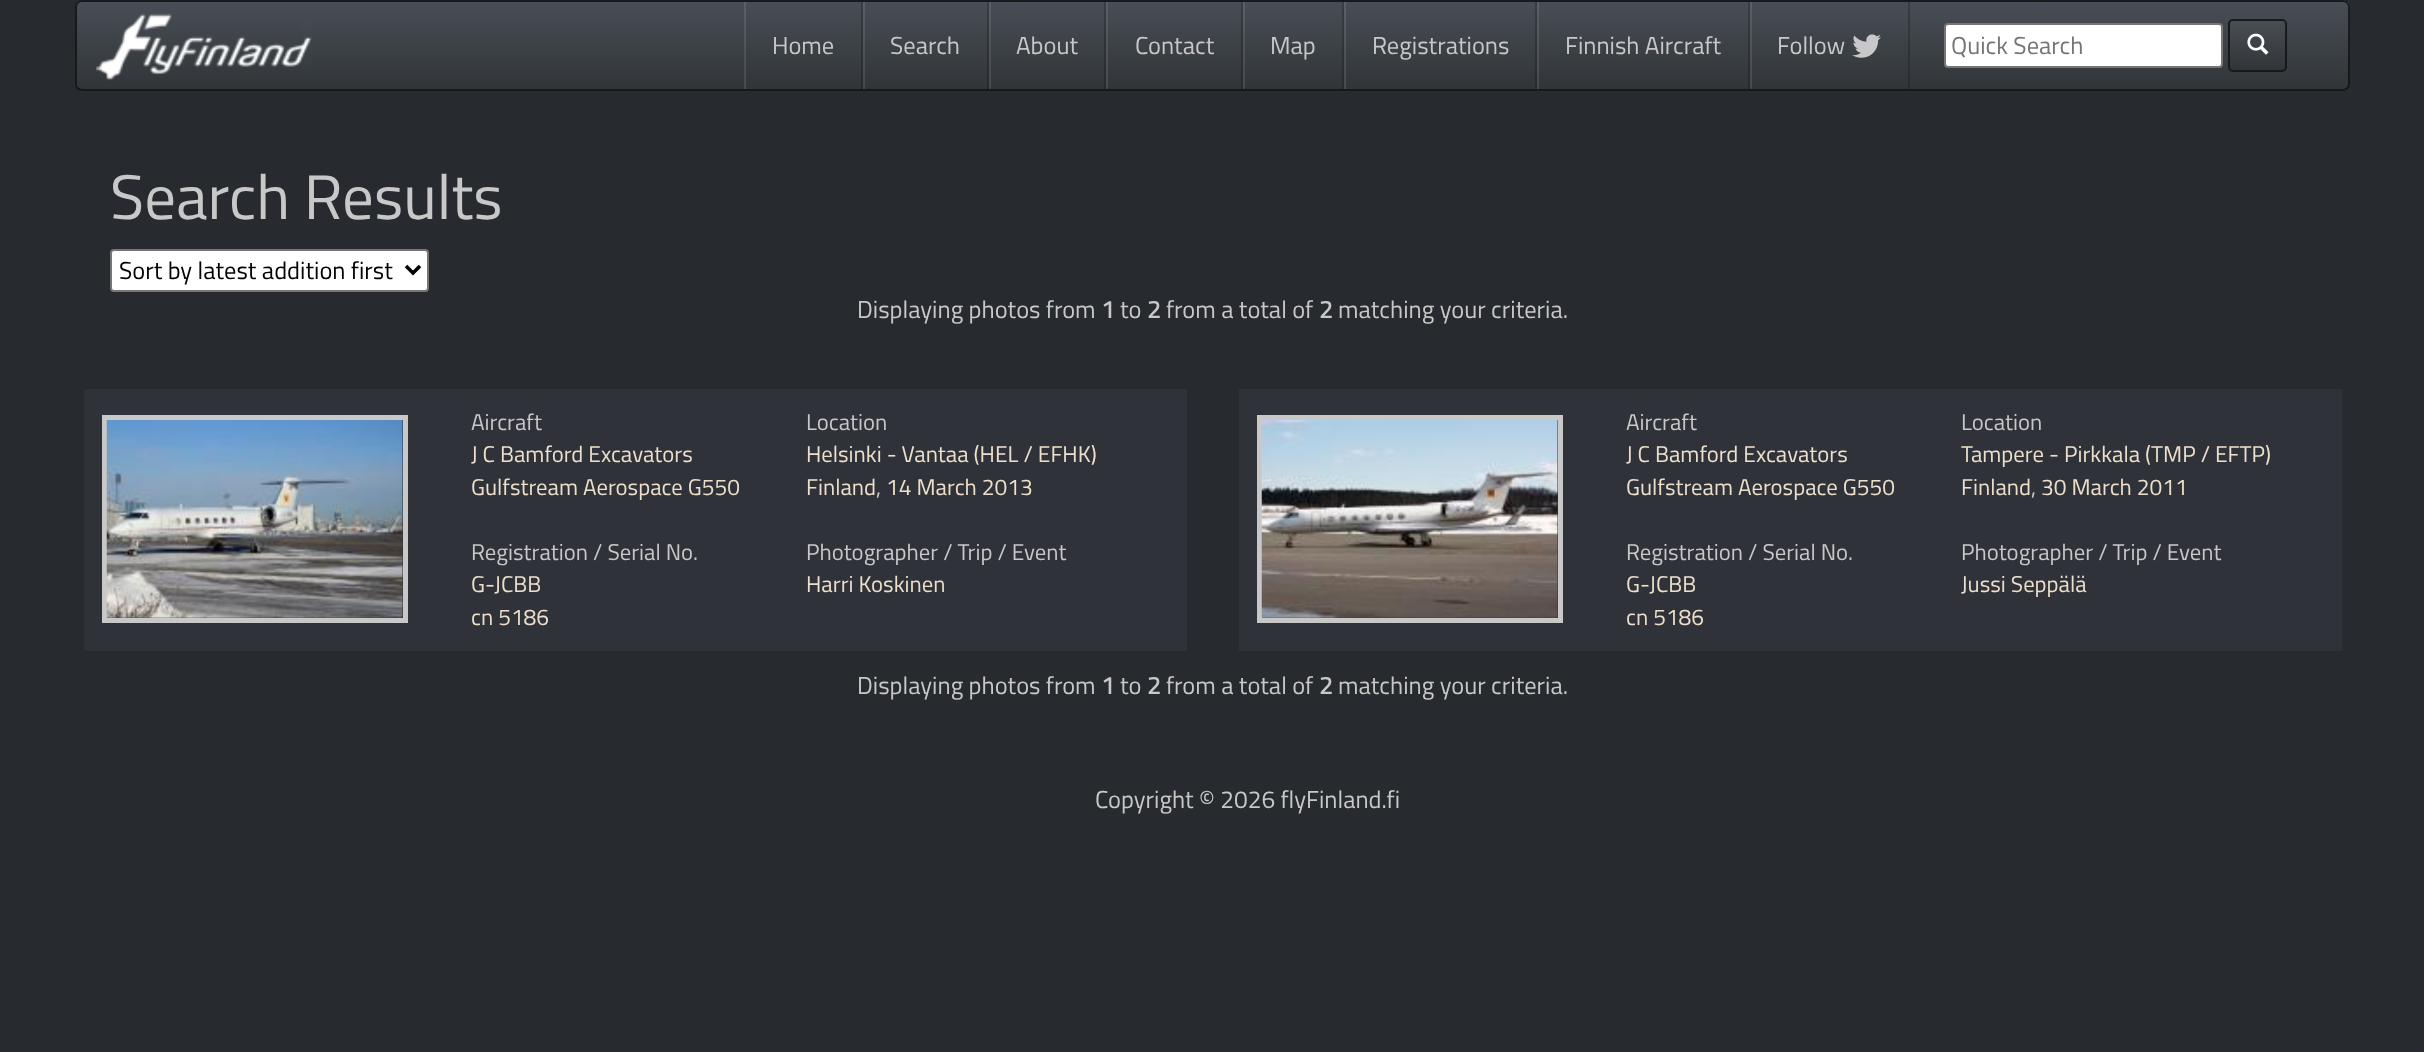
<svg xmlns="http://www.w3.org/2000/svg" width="2424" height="1052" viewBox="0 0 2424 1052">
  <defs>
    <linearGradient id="g1" gradientUnits="userSpaceOnUse" x1="1213" y1="1.7" x2="1213" y2="89"><stop offset="0" stop-color="rgb(72,78,85)"/><stop offset="0.6" stop-color="rgb(58,63,68)"/><stop offset="1" stop-color="rgb(49,53,57)"/></linearGradient>
    <linearGradient id="g2" gradientUnits="userSpaceOnUse" x1="1213" y1="1.7" x2="1213" y2="89"><stop offset="0" stop-color="rgb(90,96,102)"/><stop offset="0.6" stop-color="rgb(78,82,87)"/><stop offset="1" stop-color="rgb(70,73,77)"/></linearGradient>
    <linearGradient id="g3" gradientUnits="userSpaceOnUse" x1="1213" y1="1.7" x2="1213" y2="89"><stop offset="0" stop-color="rgb(58,62,68)"/><stop offset="0.6" stop-color="rgb(46,50,54)"/><stop offset="1" stop-color="rgb(39,42,46)"/></linearGradient>
    <linearGradient id="g4" gradientUnits="userSpaceOnUse" x1="2258" y1="21" x2="2258" y2="70"><stop offset="0" stop-color="rgb(72,78,85)"/><stop offset="0.6" stop-color="rgb(58,63,68)"/><stop offset="1" stop-color="rgb(49,53,57)"/></linearGradient>
  </defs>
  <rect width="100%" height="100%" fill="rgb(39,43,48)"/>
  <rect x="75" y="0" width="2275" height="91" rx="7" fill="rgb(58,63,68)"/>
  <rect x="77" y="2" width="2272" height="87" fill="url(#g1)"/>
  <rect x="1750" y="2" width="2" height="87" fill="url(#g2)"/>
  <rect x="1908" y="2" width="2" height="87" fill="url(#g3)"/>
  <rect x="1537" y="2" width="2" height="87" fill="url(#g2)"/>
  <rect x="1748" y="2" width="2" height="87" fill="url(#g3)"/>
  <rect x="1344" y="2" width="2" height="87" fill="url(#g2)"/>
  <rect x="1535" y="2" width="2" height="87" fill="url(#g3)"/>
  <rect x="1243" y="2" width="2" height="87" fill="url(#g2)"/>
  <rect x="1342" y="2" width="2" height="87" fill="url(#g3)"/>
  <rect x="1106" y="2" width="2" height="87" fill="url(#g2)"/>
  <rect x="1241" y="2" width="2" height="87" fill="url(#g3)"/>
  <rect x="989" y="2" width="2" height="87" fill="url(#g2)"/>
  <rect x="1104" y="2" width="2" height="87" fill="url(#g3)"/>
  <rect x="863" y="2" width="2" height="87" fill="url(#g2)"/>
  <rect x="987" y="2" width="2" height="87" fill="url(#g3)"/>
  <rect x="744" y="2" width="2" height="87" fill="url(#g2)"/>
  <rect x="861" y="2" width="2" height="87" fill="url(#g3)"/>
  <rect x="76" y="1" width="2273" height="89" rx="6" fill="none" stroke="rgba(0,0,0,0.6)" stroke-width="2"/>
  <image x="95" y="13" width="217" height="68" href="pic1.png"/>
  <g font-family="Titillium Web" font-size="24.5" fill="rgb(200,200,200)">
    <text x="772" y="54">Home</text>
    <text x="890" y="54">Search</text>
    <text x="1016" y="54">About</text>
    <text x="1135" y="54">Contact</text>
    <text x="1270" y="54">Map</text>
    <text x="1372" y="54">Registrations</text>
    <text x="1565" y="54">Finnish Aircraft</text>
    <text x="1777" y="54">Follow</text>
  </g>
  <image x="1852" y="34" width="29" height="24" href="pic2.png"/>
  <rect x="1945" y="24" width="277" height="43" rx="3" fill="rgb(255,255,255)" stroke="rgb(118,118,118)" stroke-width="2"/>
  <text x="1951" y="54" font-family="Titillium Web" font-size="24.5" fill="rgb(117,117,117)">Quick Search</text>
  <rect x="2228" y="19" width="59" height="53" rx="5" fill="rgb(58,63,68)"/>
  <rect x="2230" y="21" width="56" height="49" fill="url(#g4)"/>
  <rect x="2229" y="20" width="57" height="51" rx="4" fill="none" stroke="rgba(0,0,0,0.6)" stroke-width="2"/>
  <image x="2247" y="33" width="22" height="22" href="pic3.png"/>
  <text x="110" y="219" font-family="Titillium Web" font-size="63" fill="rgb(200,200,200)">Search Results</text>
  <rect x="111" y="250" width="317" height="41" rx="3" fill="rgb(255,255,255)" stroke="rgb(118,118,118)" stroke-width="2"/>
  <path d="M406 266L413 273L420 266" fill="none" stroke="rgb(0,0,0)" stroke-width="3.5"/>
  <text x="119" y="279" font-family="Titillium Web" font-size="24.5" fill="rgb(0,0,0)">Sort by latest addition first</text>
  <text x="857" y="318" font-family="Titillium Web" font-size="24.5" fill="rgb(200,200,200)">Displaying photos from</text>
  <text x="1101" y="318" font-family="Titillium Web" font-size="24.5" font-weight="bold" fill="rgb(200,200,200)">1</text>
  <text x="1120" y="318" font-family="Titillium Web" font-size="24.5" fill="rgb(200,200,200)">to</text>
  <text x="1147" y="318" font-family="Titillium Web" font-size="24.5" font-weight="bold" fill="rgb(200,200,200)">2</text>
  <text x="1166" y="318" font-family="Titillium Web" font-size="24.5" fill="rgb(200,200,200)">from a total of</text>
  <text x="1319" y="318" font-family="Titillium Web" font-size="24.5" font-weight="bold" fill="rgb(200,200,200)">2</text>
  <text x="1338" y="318" font-family="Titillium Web" font-size="24.5" fill="rgb(200,200,200)">matching your criteria.</text>
  <rect x="84" y="389" width="1103" height="262" fill="rgb(47,50,56)"/>
  <rect x="104.5" y="417.5" width="301" height="203" fill="none" stroke="rgb(200,200,200)" stroke-width="5"/>
  <image x="106" y="420" width="297" height="198" href="pic4.png"/>
  <text x="471" y="430" font-family="Titillium Web" font-size="22.75" fill="rgb(200,200,200)">Aircraft</text>
  <g font-family="Titillium Web" font-size="22.75" fill="rgb(237,223,204)">
    <text>
      <tspan x="471" y="462">J C Bamford Excavators</tspan>
      <tspan x="471" y="495">Gulfstream Aerospace G550</tspan>
    </text>
  </g>
  <text x="471" y="560" font-family="Titillium Web" font-size="22.75" fill="rgb(200,200,200)">Registration / Serial No.</text>
  <g font-family="Titillium Web" font-size="22.75" fill="rgb(237,223,204)">
    <text>
      <tspan x="471" y="592">G-JCBB</tspan>
      <tspan x="471" y="625">cn 5186</tspan>
    </text>
  </g>
  <text x="806" y="430" font-family="Titillium Web" font-size="22.75" fill="rgb(200,200,200)">Location</text>
  <g font-family="Titillium Web" font-size="22.75" fill="rgb(237,223,204)">
    <text>
      <tspan x="806" y="462">Helsinki - Vantaa (HEL / EFHK)</tspan>
      <tspan x="806" y="495">Finland</tspan>
    </text>
  </g>
  <text x="876" y="495" font-family="Titillium Web" font-size="22.75" fill="rgb(200,200,200)">,</text>
  <text x="886" y="495" font-family="Titillium Web" font-size="22.75" fill="rgb(237,223,204)">14 March 2013</text>
  <text x="806" y="560" font-family="Titillium Web" font-size="22.75" fill="rgb(200,200,200)">Photographer / Trip / Event</text>
  <text x="806" y="592" font-family="Titillium Web" font-size="22.75" fill="rgb(237,223,204)">Harri Koskinen</text>
  <rect x="1239" y="389" width="1103" height="262" fill="rgb(47,50,56)"/>
  <rect x="1259.5" y="417.5" width="301" height="203" fill="none" stroke="rgb(200,200,200)" stroke-width="5"/>
  <image x="1261" y="420" width="297" height="198" href="pic5.png"/>
  <text x="1626" y="430" font-family="Titillium Web" font-size="22.75" fill="rgb(200,200,200)">Aircraft</text>
  <g font-family="Titillium Web" font-size="22.75" fill="rgb(237,223,204)">
    <text>
      <tspan x="1626" y="462">J C Bamford Excavators</tspan>
      <tspan x="1626" y="495">Gulfstream Aerospace G550</tspan>
    </text>
  </g>
  <text x="1626" y="560" font-family="Titillium Web" font-size="22.75" fill="rgb(200,200,200)">Registration / Serial No.</text>
  <g font-family="Titillium Web" font-size="22.75" fill="rgb(237,223,204)">
    <text>
      <tspan x="1626" y="592">G-JCBB</tspan>
      <tspan x="1626" y="625">cn 5186</tspan>
    </text>
  </g>
  <text x="1961" y="430" font-family="Titillium Web" font-size="22.75" fill="rgb(200,200,200)">Location</text>
  <g font-family="Titillium Web" font-size="22.75" fill="rgb(237,223,204)">
    <text>
      <tspan x="1961" y="462">Tampere - Pirkkala (TMP / EFTP)</tspan>
      <tspan x="1961" y="495">Finland</tspan>
    </text>
  </g>
  <text x="2031" y="495" font-family="Titillium Web" font-size="22.75" fill="rgb(200,200,200)">,</text>
  <text x="2041" y="495" font-family="Titillium Web" font-size="22.75" fill="rgb(237,223,204)">30 March 2011</text>
  <text x="1961" y="560" font-family="Titillium Web" font-size="22.75" fill="rgb(200,200,200)">Photographer / Trip / Event</text>
  <text x="1961" y="592" font-family="Titillium Web" font-size="22.75" fill="rgb(237,223,204)">Jussi Seppälä</text>
  <text x="857" y="694" font-family="Titillium Web" font-size="24.5" fill="rgb(200,200,200)">Displaying photos from</text>
  <text x="1101" y="694" font-family="Titillium Web" font-size="24.5" font-weight="bold" fill="rgb(200,200,200)">1</text>
  <text x="1120" y="694" font-family="Titillium Web" font-size="24.5" fill="rgb(200,200,200)">to</text>
  <text x="1147" y="694" font-family="Titillium Web" font-size="24.5" font-weight="bold" fill="rgb(200,200,200)">2</text>
  <text x="1166" y="694" font-family="Titillium Web" font-size="24.5" fill="rgb(200,200,200)">from a total of</text>
  <text x="1319" y="694" font-family="Titillium Web" font-size="24.5" font-weight="bold" fill="rgb(200,200,200)">2</text>
  <g font-family="Titillium Web" font-size="24.5" fill="rgb(200,200,200)">
    <text x="1338" y="694">matching your criteria.</text>
    <text x="1095" y="808">Copyright © 2026 flyFinland.fi</text>
  </g>
</svg>
